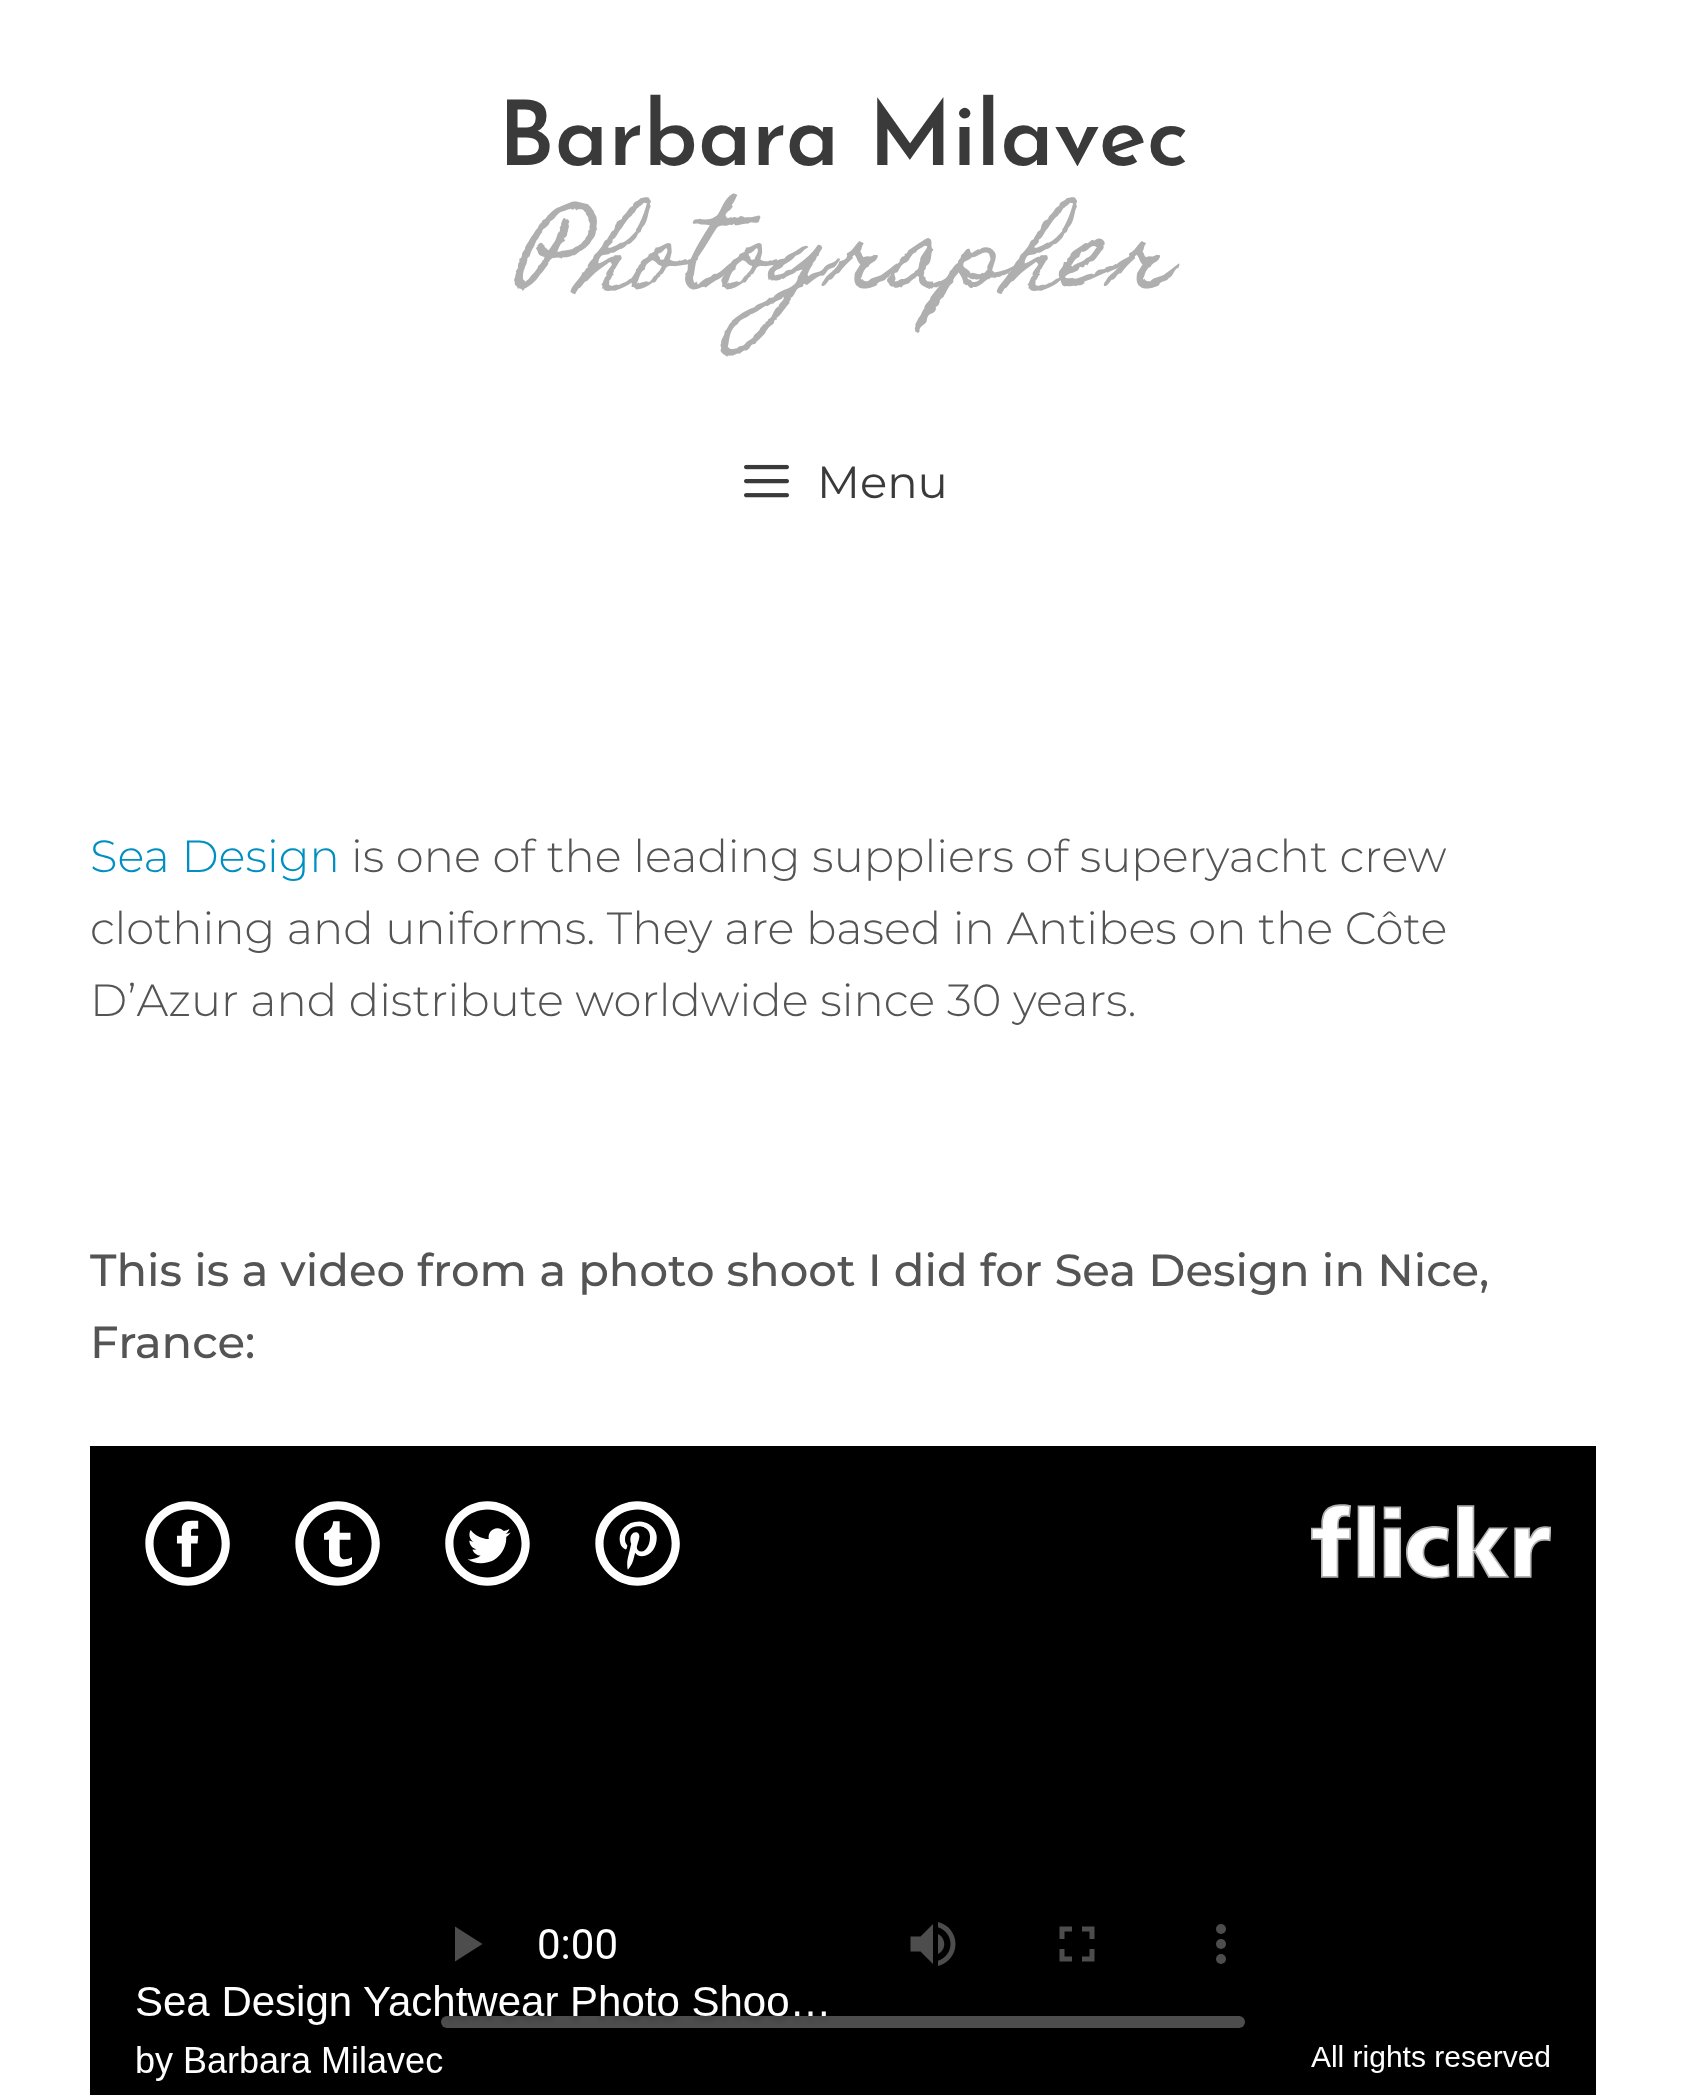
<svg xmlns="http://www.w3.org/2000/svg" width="1684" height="2095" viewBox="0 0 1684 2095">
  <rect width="100%" height="100%" fill="rgb(255,255,255)"/>
  <text x="498" y="165" font-family="Josefin Sans" font-size="90" font-weight="600" fill="rgb(58,58,58)">Barbara Milavec</text>
  <text x="517" y="285" font-family="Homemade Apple" font-size="90" font-style="italic" fill="rgb(175,175,175)">Photographer</text>
  <image x="744" y="464" width="45" height="34" href="pic1.png"/>
  <text x="817" y="498" font-family="Montserrat" font-size="45" fill="rgb(58,58,58)">Menu</text>
  <text x="90" y="872" font-family="Montserrat" font-size="45" font-weight="300" fill="rgb(0,143,194)">Sea Design</text>
  <g font-family="Montserrat" font-size="45" font-weight="300" fill="rgb(84,84,84)">
    <text x="351" y="872">is one of the leading suppliers of superyacht crew</text>
    <text>
      <tspan x="90" y="944">clothing and uniforms. They are based in Antibes on the Côte</tspan>
      <tspan x="90" y="1016">DʼAzur and distribute worldwide since 30 years.</tspan>
    </text>
  </g>
  <g font-family="Montserrat" font-size="45" font-weight="500" fill="rgb(84,84,84)">
    <text>
      <tspan x="90" y="1286">This is a video from a photo shoot I did for Sea Design in Nice,</tspan>
      <tspan x="90" y="1358">France:</tspan>
    </text>
  </g>
  <image x="90" y="1446" width="1506" height="649" href="pic2.png"/>
</svg>
